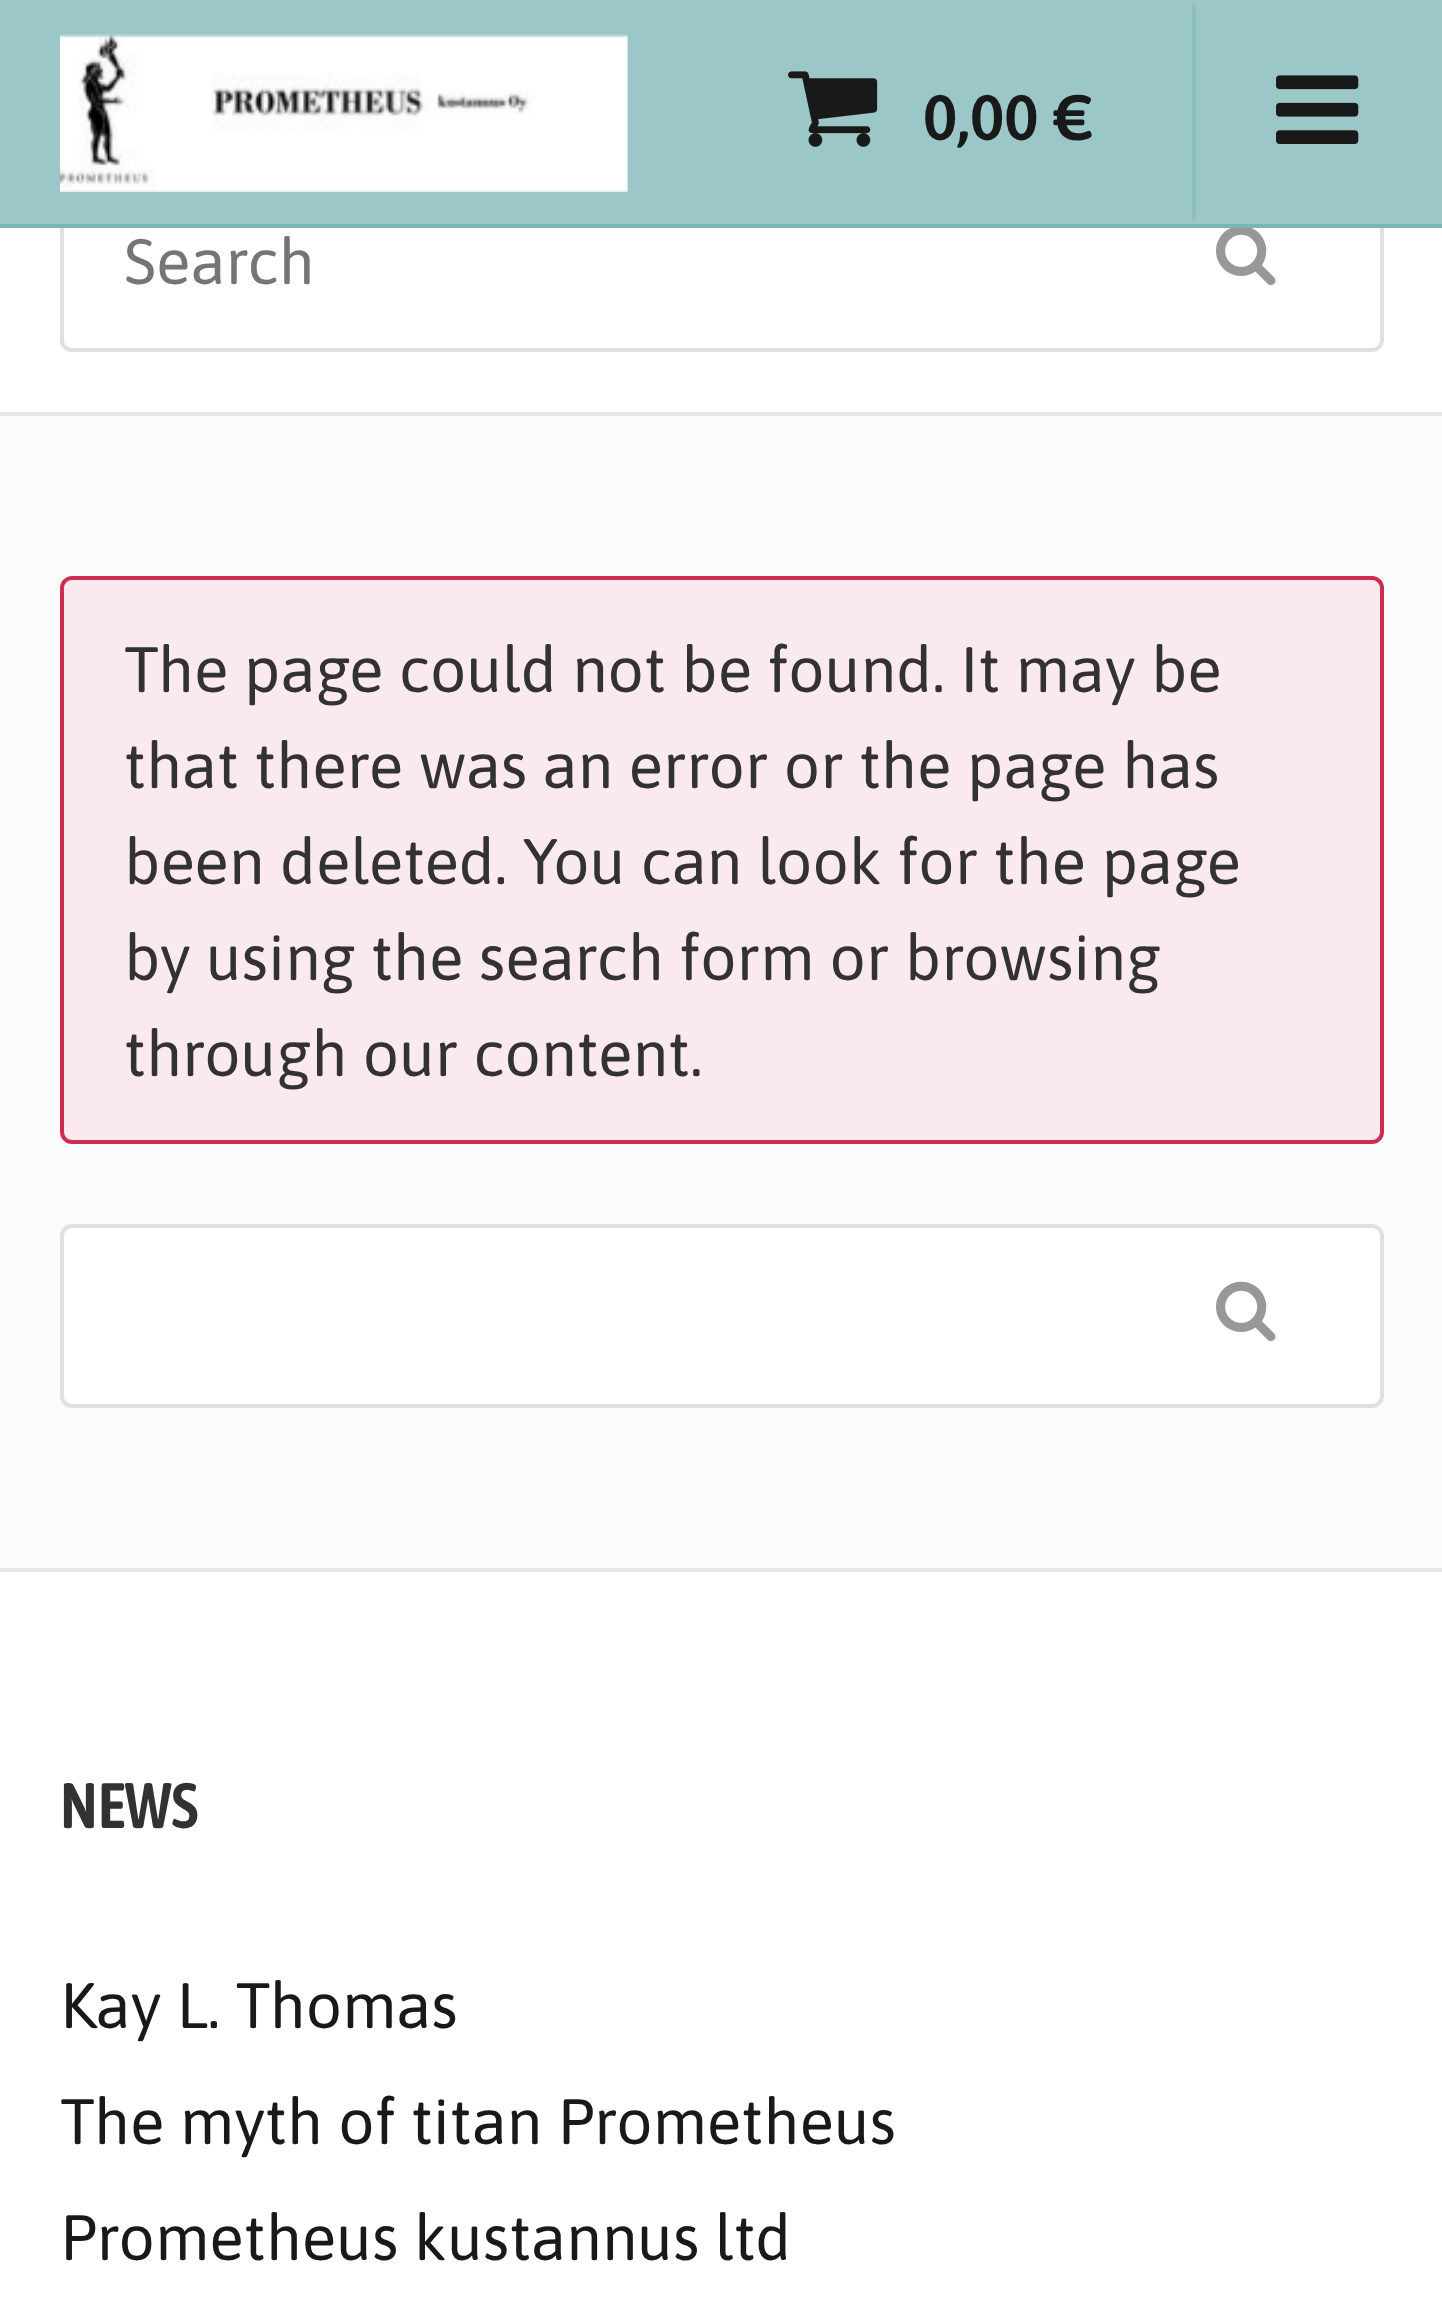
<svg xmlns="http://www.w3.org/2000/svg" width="1442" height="2305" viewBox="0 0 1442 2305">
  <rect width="100%" height="100%" fill="rgb(250,251,251)"/>
  <rect x="0" y="228" width="1442" height="184" fill="rgb(255,255,255)"/>
  <rect x="62" y="170" width="1320" height="180" rx="10" fill="none" stroke="rgb(224,224,224)" stroke-width="4"/>
  <rect x="0" y="0" width="1442" height="224" fill="rgb(156,199,201)"/>
  <rect x="0" y="224" width="1442" height="4" fill="rgb(123,180,183)"/>
  <image x="60" y="34" width="568" height="158" href="pic1.png"/>
  <image x="788" y="71" width="90" height="76" href="pic2.png"/>
  <text x="923" y="140" font-family="Asap" font-size="64" font-weight="600" fill="rgb(25,25,25)">0,00 €</text>
  <rect x="1192" y="4" width="4" height="216" fill="rgb(140,190,192)"/>
  <image x="1276" y="75" width="83" height="69" href="pic3.png"/>
  <rect x="0" y="412" width="1442" height="4" fill="rgb(230,231,231)"/>
  <text x="124" y="284" font-family="Asap" font-size="64" fill="rgb(117,117,117)">Search</text>
  <image x="1216" y="228" width="60" height="58" href="pic4.png"/>
  <rect x="62" y="578" width="1320" height="564" rx="10" fill="rgb(250,234,237)" stroke="rgb(206,45,79)" stroke-width="4"/>
  <g font-family="Asap" font-size="64" fill="rgb(50,50,50)">
    <text>
      <tspan x="124" y="692">The page could not be found. It may be</tspan>
      <tspan x="124" y="788">that there was an error or the page has</tspan>
      <tspan x="124" y="884">been deleted. You can look for the page</tspan>
      <tspan x="124" y="980">by using the search form or browsing</tspan>
      <tspan x="124" y="1076">through our content.</tspan>
    </text>
  </g>
  <rect x="62" y="1226" width="1320" height="180" rx="10" fill="rgb(255,255,255)" stroke="rgb(224,224,224)" stroke-width="4"/>
  <image x="1216" y="1281" width="60" height="61" href="pic5.png"/>
  <rect x="0" y="1572" width="1442" height="733" fill="rgb(255,255,255)"/>
  <rect x="0" y="1568" width="1442" height="4" fill="rgb(230,231,231)"/>
  <text x="60" y="1828" font-family="Asap Condensed" font-size="64" font-weight="600" fill="rgb(50,50,50)">NEWS</text>
  <g font-family="Asap" font-size="64" fill="rgb(25,25,25)">
    <text>
      <tspan x="60" y="2028">Kay L. Thomas</tspan>
      <tspan x="60" y="2144">The myth of titan Prometheus</tspan>
      <tspan x="60" y="2260">Prometheus kustannus ltd</tspan>
    </text>
  </g>
</svg>
